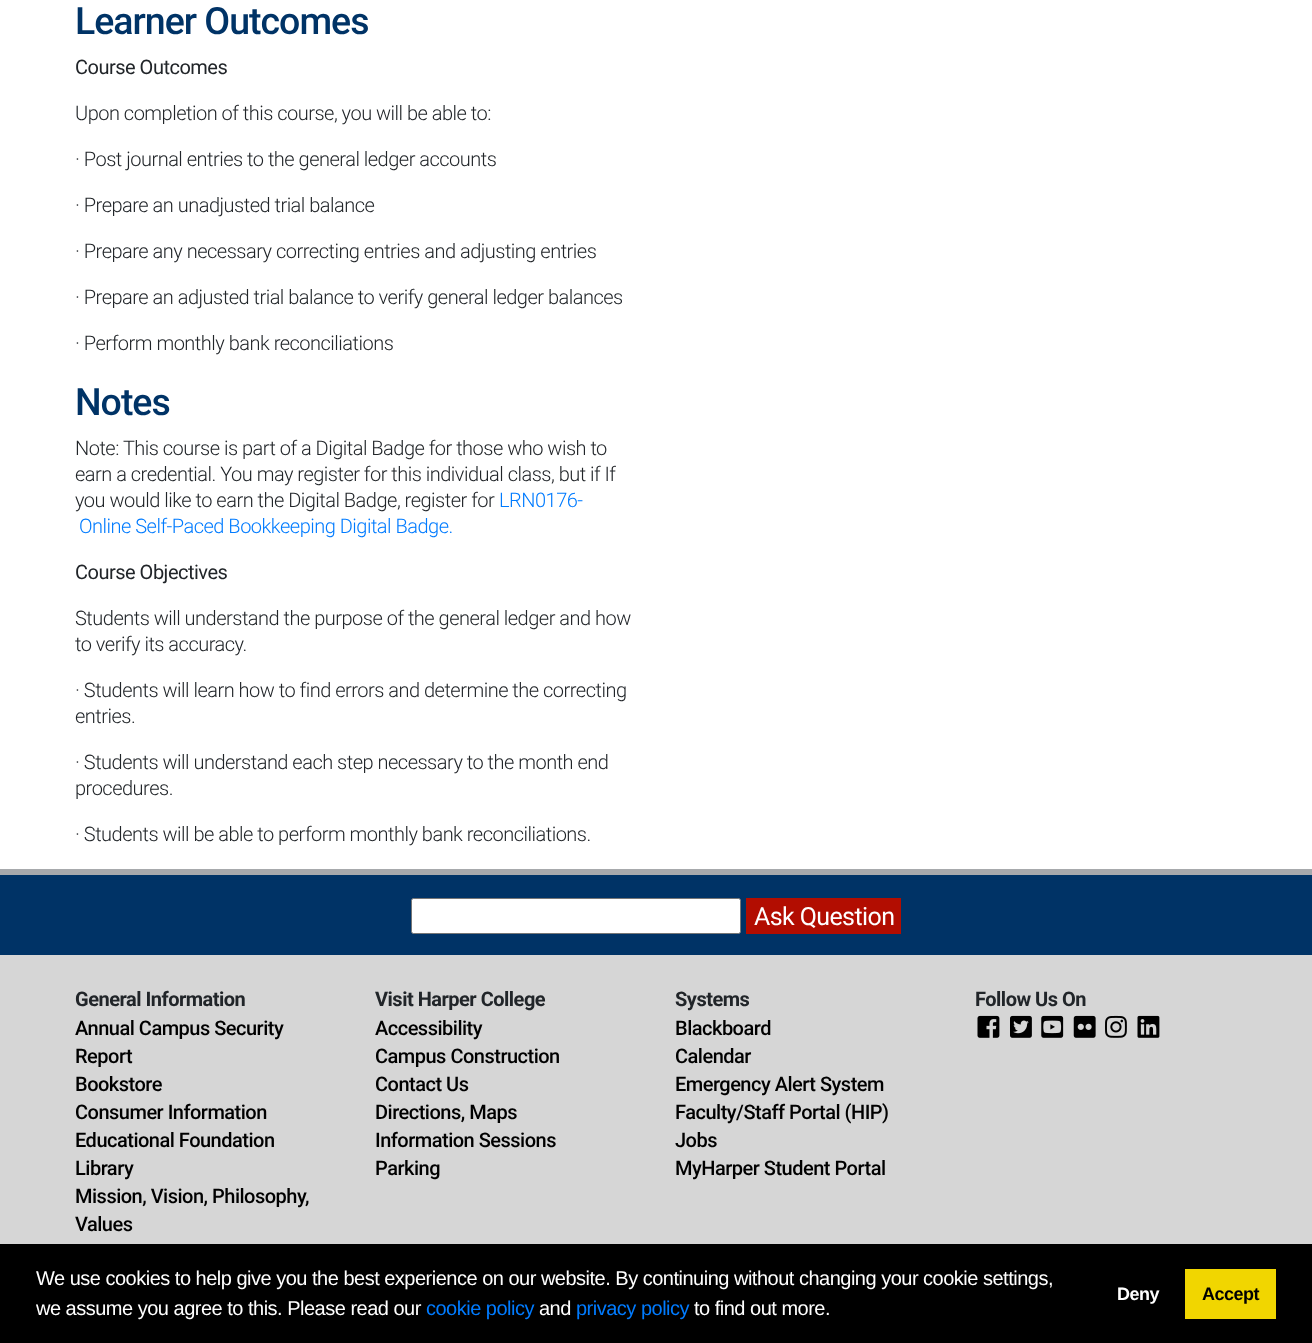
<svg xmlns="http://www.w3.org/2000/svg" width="1312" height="1343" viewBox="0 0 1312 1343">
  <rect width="100%" height="100%" fill="rgb(255,255,255)"/>
  <text x="75" y="34" font-family="Roboto" font-size="37.5" font-weight="500" letter-spacing="-1" fill="rgb(0,51,102)">Learner Outcomes</text>
  <text x="75" y="74" font-family="Roboto" font-size="20" letter-spacing="-0.5" fill="rgb(33,37,41)">Course Outcomes</text>
  <g font-family="Roboto" font-size="20" font-weight="300" letter-spacing="-0.5" fill="rgb(33,37,41)">
    <text x="75" y="120">Upon completion of this course, you will be able to:</text>
    <text x="75" y="166">· Post journal entries to the general ledger accounts</text>
    <text x="75" y="212">· Prepare an unadjusted trial balance</text>
    <text x="75" y="258">· Prepare any necessary correcting entries and adjusting entries</text>
    <text x="75" y="304">· Prepare an adjusted trial balance to verify general ledger balances</text>
    <text x="75" y="350">· Perform monthly bank reconciliations</text>
  </g>
  <text x="75" y="415" font-family="Roboto" font-size="37.5" font-weight="500" letter-spacing="-1" fill="rgb(0,51,102)">Notes</text>
  <g font-family="Roboto" font-size="20" font-weight="300" letter-spacing="-0.5" fill="rgb(33,37,41)">
    <text>
      <tspan x="75" y="455">Note: This course is part of a Digital Badge for those who wish to</tspan>
      <tspan x="75" y="481">earn a credential. You may register for this individual class, but if If</tspan>
      <tspan x="75" y="507">you would like to earn the Digital Badge, register for</tspan>
    </text>
  </g>
  <g font-family="Roboto" font-size="20" font-weight="300" letter-spacing="-0.5" fill="rgb(0,123,255)">
    <text x="499" y="507">LRN0176-</text>
    <text x="79" y="533">Online Self-Paced Bookkeeping Digital Badge.</text>
  </g>
  <text x="75" y="579" font-family="Roboto" font-size="20" letter-spacing="-0.5" fill="rgb(33,37,41)">Course Objectives</text>
  <g font-family="Roboto" font-size="20" font-weight="300" letter-spacing="-0.5" fill="rgb(33,37,41)">
    <text>
      <tspan x="75" y="625">Students will understand the purpose of the general ledger and how</tspan>
      <tspan x="75" y="651">to verify its accuracy.</tspan>
    </text>
    <text>
      <tspan x="75" y="697">· Students will learn how to find errors and determine the correcting</tspan>
      <tspan x="75" y="723">entries.</tspan>
    </text>
    <text>
      <tspan x="75" y="769">· Students will understand each step necessary to the month end</tspan>
      <tspan x="75" y="795">procedures.</tspan>
    </text>
    <text x="75" y="841">· Students will be able to perform monthly bank reconciliations.</text>
  </g>
  <rect x="0" y="955" width="1312" height="289" fill="rgb(214,214,214)"/>
  <rect x="0" y="869" width="1312" height="6" fill="rgb(167,169,172)"/>
  <rect x="0" y="875" width="1312" height="80" fill="rgb(0,51,102)"/>
  <rect x="411.5" y="898.5" width="329" height="35" rx="2" fill="rgb(255,255,255)" stroke="rgb(118,118,118)"/>
  <rect x="746" y="898" width="155" height="36" fill="rgb(178,13,1)"/>
  <text x="754" y="925" font-family="Roboto" font-size="25" letter-spacing="-0.6" fill="rgb(255,255,255)">Ask Question</text>
  <text x="75" y="1006" font-family="Roboto" font-size="20" font-weight="bold" letter-spacing="-0.5" fill="rgb(33,37,41)">General Information</text>
  <g font-family="Roboto" font-size="20" font-weight="500" letter-spacing="-0.5" fill="rgb(0,0,0)">
    <text>
      <tspan x="75" y="1035">Annual Campus Security</tspan>
      <tspan x="75" y="1063">Report</tspan>
      <tspan x="75" y="1091">Bookstore</tspan>
      <tspan x="75" y="1119">Consumer Information</tspan>
      <tspan x="75" y="1147">Educational Foundation</tspan>
      <tspan x="75" y="1175">Library</tspan>
      <tspan x="75" y="1203">Mission, Vision, Philosophy,</tspan>
      <tspan x="75" y="1231">Values</tspan>
    </text>
  </g>
  <text x="375" y="1006" font-family="Roboto" font-size="20" font-weight="bold" letter-spacing="-0.5" fill="rgb(33,37,41)">Visit Harper College</text>
  <g font-family="Roboto" font-size="20" font-weight="500" letter-spacing="-0.5" fill="rgb(0,0,0)">
    <text>
      <tspan x="375" y="1035">Accessibility</tspan>
      <tspan x="375" y="1063">Campus Construction</tspan>
      <tspan x="375" y="1091">Contact Us</tspan>
      <tspan x="375" y="1119">Directions, Maps</tspan>
      <tspan x="375" y="1147">Information Sessions</tspan>
      <tspan x="375" y="1175">Parking</tspan>
    </text>
  </g>
  <text x="675" y="1006" font-family="Roboto" font-size="20" font-weight="bold" letter-spacing="-0.5" fill="rgb(33,37,41)">Systems</text>
  <g font-family="Roboto" font-size="20" font-weight="500" letter-spacing="-0.5" fill="rgb(0,0,0)">
    <text>
      <tspan x="675" y="1035">Blackboard</tspan>
      <tspan x="675" y="1063">Calendar</tspan>
      <tspan x="675" y="1091">Emergency Alert System</tspan>
      <tspan x="675" y="1119">Faculty/Staff Portal (HIP)</tspan>
      <tspan x="675" y="1147">Jobs</tspan>
      <tspan x="675" y="1175">MyHarper Student Portal</tspan>
    </text>
  </g>
  <text x="975" y="1006" font-family="Roboto" font-size="20" font-weight="bold" letter-spacing="-0.5" fill="rgb(33,37,41)">Follow Us On</text>
  <image x="977" y="1015" width="23" height="23" href="pic1.png"/>
  <image x="1010" y="1015" width="22" height="23" href="pic2.png"/>
  <image x="1041" y="1015" width="23" height="23" href="pic3.png"/>
  <image x="1073" y="1015" width="23" height="23" href="pic4.png"/>
  <image x="1105" y="1015" width="22" height="23" href="pic5.png"/>
  <image x="1137" y="1015" width="23" height="23" href="pic6.png"/>
  <rect x="0" y="1244" width="1312" height="99" fill="rgb(0,0,0)"/>
  <g font-family="Liberation Sans" font-size="20" letter-spacing="-0.5" fill="rgb(255,255,255)">
    <text>
      <tspan x="36" y="1285">We use cookies to help give you the best experience on our website. By continuing without changing your cookie settings,</tspan>
      <tspan x="36" y="1315">we assume you agree to this. Please read our</tspan>
    </text>
  </g>
  <text x="426" y="1315" font-family="Liberation Sans" font-size="20" letter-spacing="-0.5" fill="rgb(0,123,255)">cookie policy</text>
  <text x="539" y="1315" font-family="Liberation Sans" font-size="20" letter-spacing="-0.5" fill="rgb(255,255,255)">and</text>
  <text x="576" y="1315" font-family="Liberation Sans" font-size="20" letter-spacing="-0.5" fill="rgb(0,123,255)">privacy policy</text>
  <text x="694" y="1315" font-family="Liberation Sans" font-size="20" letter-spacing="-0.5" fill="rgb(255,255,255)">to find out more.</text>
  <text x="1117" y="1300" font-family="Liberation Sans" font-size="18" font-weight="bold" letter-spacing="-0.5" fill="rgb(255,255,255)">Deny</text>
  <rect x="1185" y="1269" width="91" height="50" fill="rgb(241,214,0)"/>
  <text x="1202" y="1300" font-family="Liberation Sans" font-size="18" font-weight="bold" letter-spacing="-0.5" fill="rgb(0,0,0)">Accept</text>
</svg>
